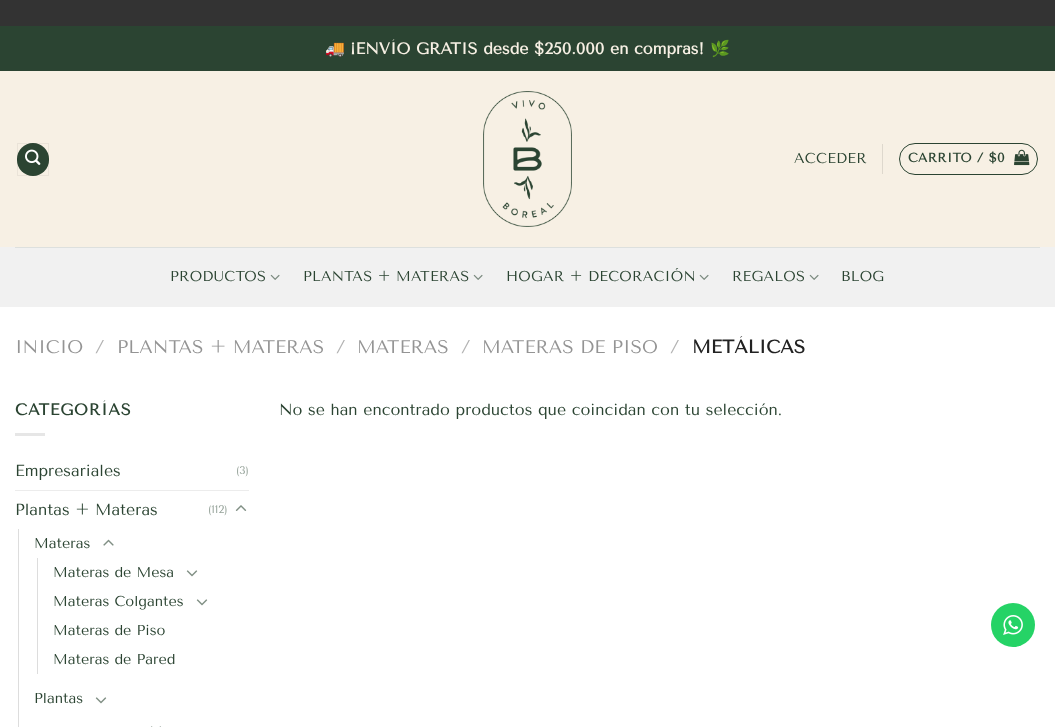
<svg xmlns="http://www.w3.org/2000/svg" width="1055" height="727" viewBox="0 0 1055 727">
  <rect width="100%" height="100%" fill="rgb(51,51,51)"/>
  <rect x="0" y="307" width="1055" height="420" fill="rgb(255,255,255)"/>
  <rect x="0" y="26" width="1055" height="45" fill="rgb(43,68,50)"/>
  <text x="325" y="54" font-family="Noto Color Emoji" font-size="16" font-weight="bold" fill="rgb(247,240,228)">🚚</text>
  <text x="350" y="54" font-family="Tenor Sans" font-size="16" font-weight="bold" fill="rgb(247,240,228)">¡ENVÍO GRATIS desde $250.000 en compras!</text>
  <text x="710" y="54" font-family="Noto Color Emoji" font-size="16" font-weight="bold" fill="rgb(247,240,228)">🌿</text>
  <rect x="0" y="71" width="1055" height="176" fill="rgb(247,240,228)"/>
  <rect x="17" y="143" width="32" height="33" rx="16" fill="rgb(43,68,50)"/>
  <rect x="17.5" y="143.5" width="31" height="32" fill="none" stroke="rgba(0,0,0,0.05)"/>
  <image x="25" y="149" width="16" height="16" href="pic1.png"/>
  <image x="483" y="91" width="89" height="136" href="pic2.png"/>
  <text x="794" y="163" font-family="Tenor Sans" font-size="14.4" letter-spacing="0.25" fill="rgb(43,68,50)">ACCEDER</text>
  <rect x="882" y="144" width="1" height="30" fill="rgb(222,216,205)"/>
  <rect x="899.5" y="143.5" width="138" height="31" rx="15.5" fill="none" stroke="rgb(43,68,50)"/>
  <text x="908" y="162" font-family="Tenor Sans" font-size="12.75" font-weight="bold" letter-spacing="0.4" fill="rgb(43,68,50)">CARRITO / $0</text>
  <image x="1014" y="149" width="16" height="17" href="pic3.png"/>
  <rect x="0" y="247" width="1055" height="60" fill="rgb(241,241,241)"/>
  <rect x="15" y="247" width="1025" height="1" fill="rgb(221,224,222)"/>
  <text x="170" y="281" font-family="Tenor Sans" font-size="14.4" letter-spacing="0.25" fill="rgb(43,68,50)">PRODUCTOS</text>
  <image x="270" y="274" width="10" height="6" href="pic4.png"/>
  <text x="303" y="281" font-family="Tenor Sans" font-size="14.4" letter-spacing="0.25" fill="rgb(43,68,50)">PLANTAS + MATERAS</text>
  <image x="473" y="274" width="10" height="6" href="pic4.png"/>
  <text x="506" y="281" font-family="Tenor Sans" font-size="14.4" letter-spacing="0.25" fill="rgb(43,68,50)">HOGAR + DECORACIÓN</text>
  <image x="699" y="274" width="10" height="6" href="pic4.png"/>
  <text x="732" y="281" font-family="Tenor Sans" font-size="14.4" letter-spacing="0.25" fill="rgb(43,68,50)">REGALOS</text>
  <image x="809" y="274" width="10" height="6" href="pic4.png"/>
  <text x="841" y="281" font-family="Tenor Sans" font-size="14.4" letter-spacing="0.25" fill="rgb(43,68,50)">BLOG</text>
  <text x="15" y="353" font-family="Tenor Sans" font-size="18.4" fill="rgb(148,148,148)">INICIO</text>
  <text x="95" y="353" font-family="Tenor Sans" font-size="18.4" fill="rgb(178,178,178)">/</text>
  <text x="117" y="353" font-family="Tenor Sans" font-size="18.4" fill="rgb(148,148,148)">PLANTAS + MATERAS</text>
  <text x="336" y="353" font-family="Tenor Sans" font-size="18.4" fill="rgb(178,178,178)">/</text>
  <text x="357" y="353" font-family="Tenor Sans" font-size="18.4" fill="rgb(148,148,148)">MATERAS</text>
  <text x="461" y="353" font-family="Tenor Sans" font-size="18.4" fill="rgb(178,178,178)">/</text>
  <text x="482" y="353" font-family="Tenor Sans" font-size="18.4" fill="rgb(148,148,148)">MATERAS DE PISO</text>
  <text x="670" y="353" font-family="Tenor Sans" font-size="18.4" fill="rgb(178,178,178)">/</text>
  <text x="692" y="353" font-family="Tenor Sans" font-size="18.4" font-weight="bold" fill="rgb(34,34,34)">METÁLICAS</text>
  <text x="15" y="415" font-family="Tenor Sans" font-size="16" font-weight="bold" letter-spacing="0.75" fill="rgb(43,68,50)">CATEGORÍAS</text>
  <rect x="15" y="433" width="30" height="3" fill="rgb(230,230,230)"/>
  <text x="15" y="476" font-family="Tenor Sans" font-size="16" fill="rgb(43,68,50)">Empresariales</text>
  <text x="236" y="474" font-family="Tenor Sans" font-size="11" fill="rgb(149,162,153)">(3)</text>
  <rect x="15" y="490" width="234" height="1" fill="rgb(236,236,236)"/>
  <text x="15" y="515" font-family="Tenor Sans" font-size="16" fill="rgb(43,68,50)">Plantas + Materas</text>
  <text x="208" y="513" font-family="Tenor Sans" font-size="11" fill="rgb(149,162,153)">(112)</text>
  <image x="235" y="505" width="12" height="6" href="pic5.png"/>
  <rect x="18" y="529" width="1" height="198" fill="rgb(221,221,221)"/>
  <text x="34" y="548" font-family="Tenor Sans" font-size="14.4" fill="rgb(43,68,50)">Materas</text>
  <image x="103" y="539" width="11" height="7" href="pic6.png"/>
  <rect x="37" y="558" width="1" height="116" fill="rgb(221,221,221)"/>
  <text x="53" y="577" font-family="Tenor Sans" font-size="14.4" fill="rgb(43,68,50)">Materas de Mesa</text>
  <image x="186" y="570" width="12" height="7" href="pic7.png"/>
  <text x="53" y="606" font-family="Tenor Sans" font-size="14.4" fill="rgb(43,68,50)">Materas Colgantes</text>
  <image x="196" y="599" width="12" height="7" href="pic7.png"/>
  <g font-family="Tenor Sans" font-size="14.4" fill="rgb(43,68,50)">
    <text x="53" y="635">Materas de Piso</text>
    <text x="53" y="664">Materas de Pared</text>
    <text x="34" y="703">Plantas</text>
  </g>
  <image x="95" y="697" width="12" height="7" href="pic7.png"/>
  <image x="151" y="726" width="10" height="1" href="pic8.png"/>
  <text x="279" y="415" font-family="Tenor Sans" font-size="16" fill="rgb(43,68,50)">No se han encontrado productos que coincidan con tu selección.</text>
  <circle cx="1013" cy="625" r="22" fill="rgb(37,211,102)"/>
  <image x="1003" y="615" width="20" height="20" href="pic9.png"/>
</svg>
